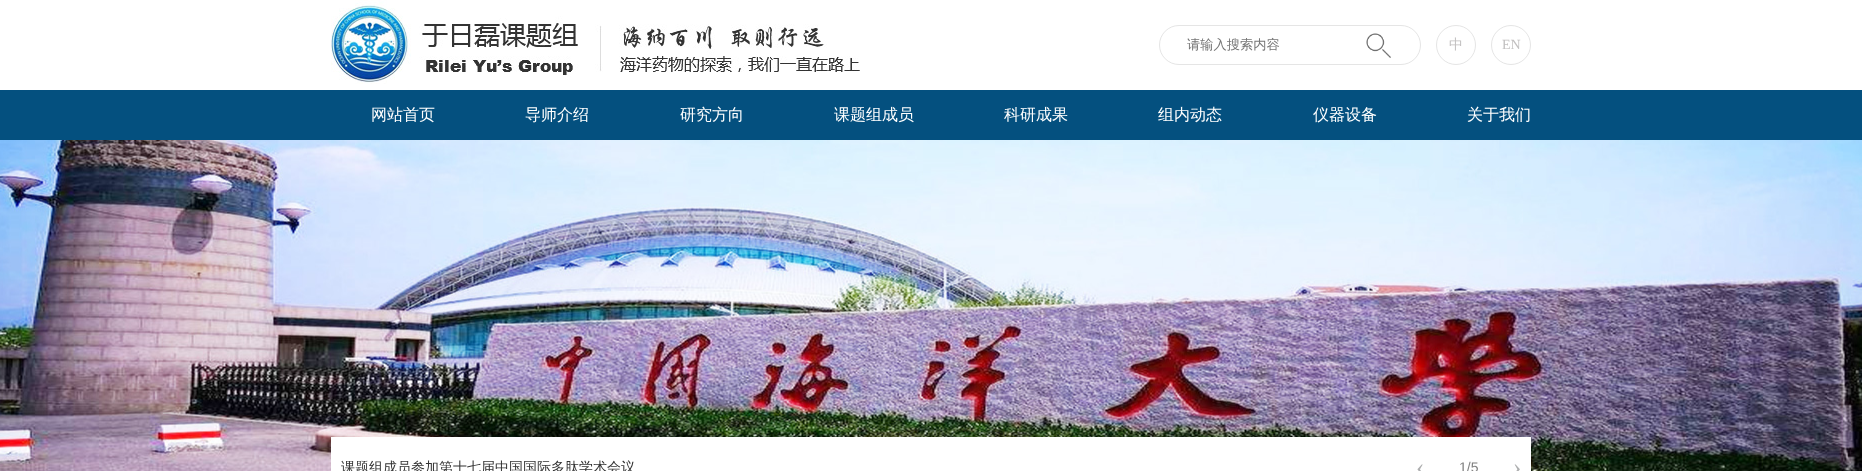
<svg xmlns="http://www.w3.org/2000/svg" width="1862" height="471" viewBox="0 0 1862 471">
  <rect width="100%" height="100%" fill="rgb(255,255,255)"/>
  <image x="331" y="0" width="529" height="84" href="pic1.png"/>
  <rect x="1159.5" y="25.5" width="261" height="39" rx="19.5" fill="none" stroke="rgb(229,229,229)"/>
  <text x="1187" y="49" font-family="WenQuanYi Zen Hei" font-size="13.25" font-weight="500" fill="rgb(117,117,117)">请输入搜索内容</text>
  <image x="1366" y="33" width="25" height="25" href="pic2.png"/>
  <circle cx="1456" cy="45" r="19.5" fill="none" stroke="rgb(229,229,229)"/>
  <text x="1449" y="49" font-family="WenQuanYi Zen Hei" font-size="14" font-weight="500" fill="rgb(194,192,192)">中</text>
  <circle cx="1511" cy="45" r="19.5" fill="none" stroke="rgb(229,229,229)"/>
  <text x="1502" y="49" font-family="Liberation Serif" font-size="14" fill="rgb(194,192,192)">EN</text>
  <rect x="0" y="90" width="1862" height="50" fill="rgb(4,80,127)"/>
  <g font-family="WenQuanYi Zen Hei" font-size="16" font-weight="500" fill="rgb(255,255,255)">
    <text x="371" y="120">网站首页</text>
    <text x="525" y="120">导师介绍</text>
    <text x="680" y="120">研究方向</text>
    <text x="834" y="120">课题组成员</text>
    <text x="1004" y="120">科研成果</text>
    <text x="1158" y="120">组内动态</text>
    <text x="1313" y="120">仪器设备</text>
    <text x="1467" y="120">关于我们</text>
  </g>
  <image x="0" y="140" width="1862" height="331" href="pic3.png"/>
  <rect x="331" y="437" width="1200" height="34" fill="rgb(255,255,255)"/>
  <text x="341" y="472" font-family="WenQuanYi Zen Hei" font-size="14" font-weight="500" fill="rgb(51,51,51)">课题组成员参加第十七届中国国际多肽学术会议</text>
  <text x="1416" y="475" font-family="Liberation Serif" font-size="25" fill="rgb(174,175,176)">‹</text>
  <text x="1459" y="472" font-family="Liberation Sans" font-size="14" fill="rgb(127,127,127)">1/5</text>
  <text x="1513" y="475" font-family="Liberation Serif" font-size="25" fill="rgb(174,175,176)">›</text>
</svg>
